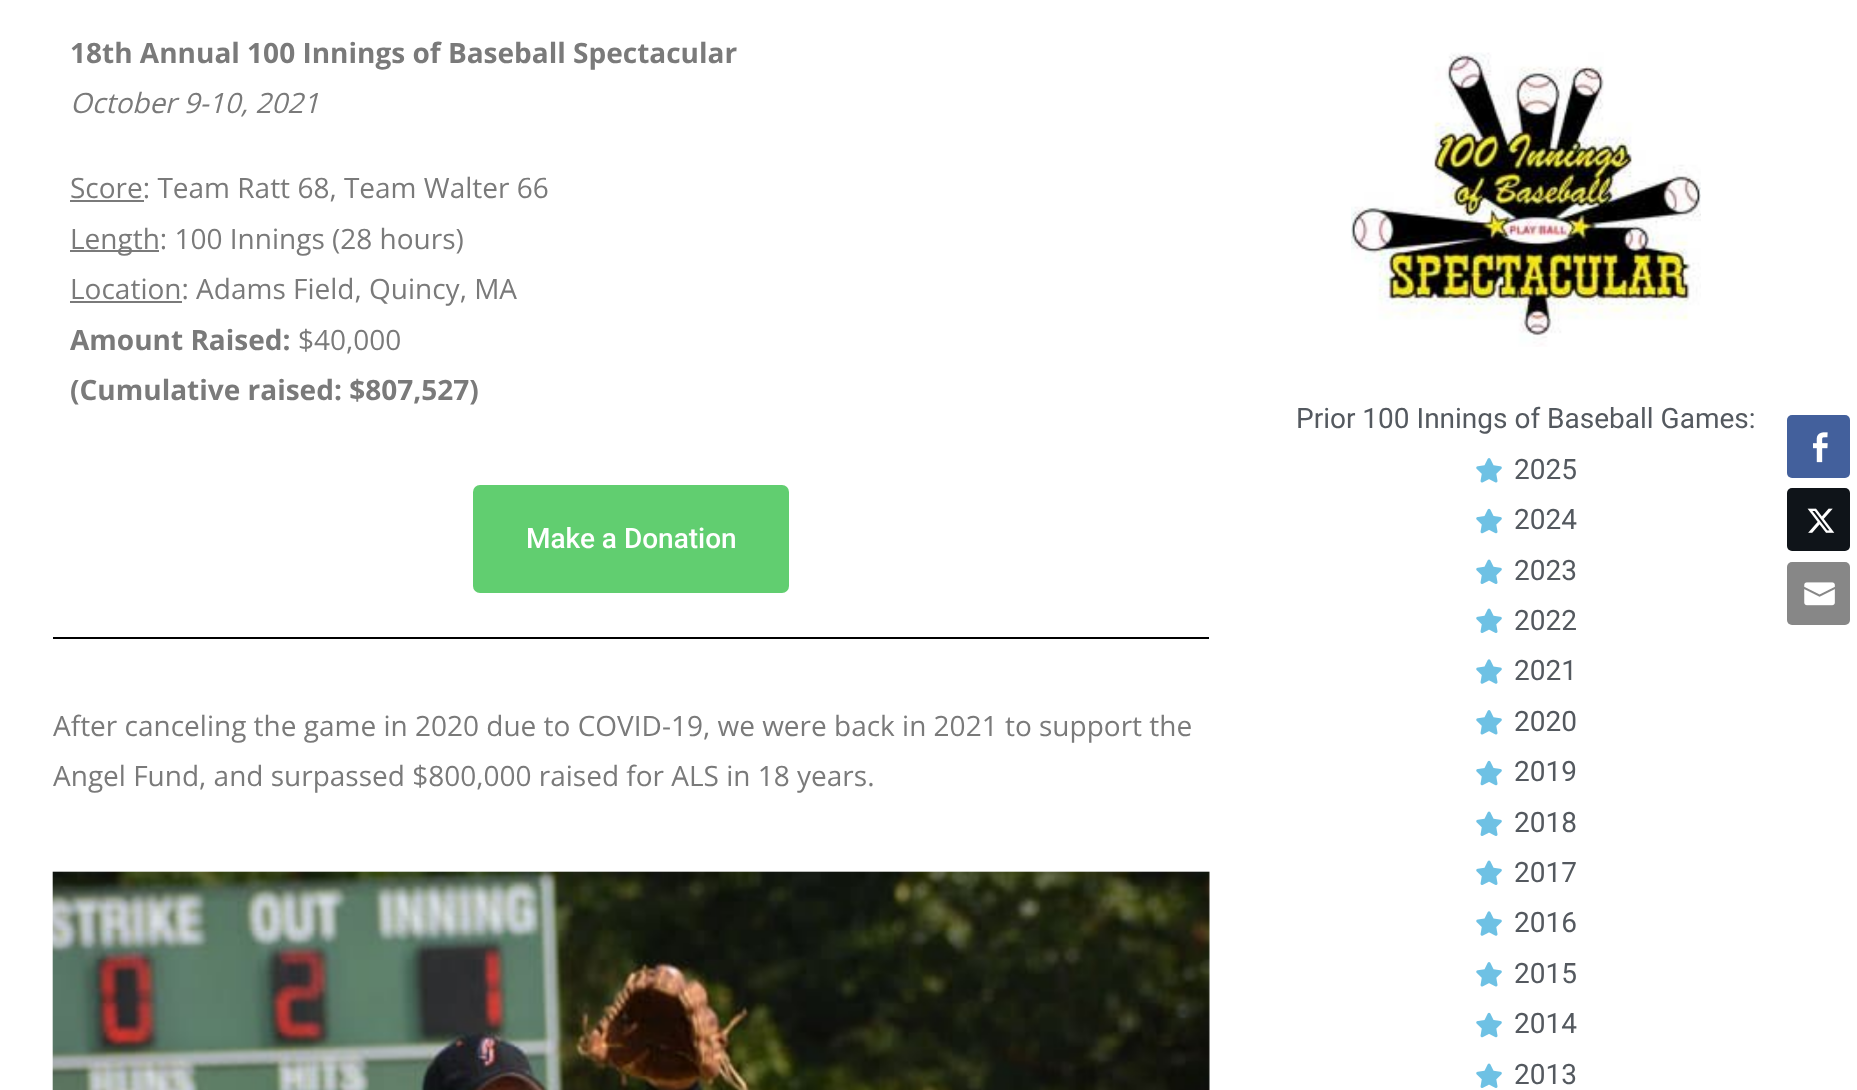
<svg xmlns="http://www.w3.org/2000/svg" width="1857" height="1090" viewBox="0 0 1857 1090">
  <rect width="100%" height="100%" fill="rgb(255,255,255)"/>
  <text x="70" y="63" font-family="Open Sans" font-size="28" font-weight="bold" fill="rgb(122,122,122)">18th Annual 100 Innings of Baseball Spectacular</text>
  <text x="70" y="113" font-family="Open Sans" font-size="28" font-style="italic" fill="rgb(122,122,122)">October 9-10, 2021</text>
  <rect x="70" y="200" width="74" height="2" fill="rgb(122,122,122)"/>
  <text x="70" y="198" font-family="Open Sans" font-size="28" fill="rgb(122,122,122)">Score: Team Ratt 68, Team Walter 66</text>
  <rect x="70" y="250" width="89" height="2" fill="rgb(122,122,122)"/>
  <text x="70" y="249" font-family="Open Sans" font-size="28" fill="rgb(122,122,122)">Length: 100 Innings (28 hours)</text>
  <rect x="70" y="301" width="112" height="2" fill="rgb(122,122,122)"/>
  <text x="70" y="299" font-family="Open Sans" font-size="28" fill="rgb(122,122,122)">Location: Adams Field, Quincy, MA</text>
  <text x="70" y="350" font-family="Open Sans" font-size="28" font-weight="bold" fill="rgb(122,122,122)">Amount Raised:</text>
  <text x="298" y="350" font-family="Open Sans" font-size="28" fill="rgb(122,122,122)">$40,000</text>
  <text x="70" y="400" font-family="Open Sans" font-size="28" font-weight="bold" fill="rgb(122,122,122)">(Cumulative raised: $807,527)</text>
  <rect x="473" y="485" width="316" height="108" rx="7" fill="rgb(97,206,112)"/>
  <text x="526" y="548" font-family="Roboto" font-size="28" font-weight="500" fill="rgb(255,255,255)">Make a Donation</text>
  <rect x="53" y="637" width="1156" height="2" fill="rgb(0,0,0)"/>
  <g font-family="Open Sans" font-size="28" fill="rgb(122,122,122)">
    <text>
      <tspan x="53" y="736">After canceling the game in 2020 due to COVID-19, we were back in 2021 to support the</tspan>
      <tspan x="53" y="786">Angel Fund, and surpassed $800,000 raised for ALS in 18 years.</tspan>
    </text>
  </g>
  <image x="52" y="871" width="1158" height="219" href="pic1.png"/>
  <image x="1351" y="52" width="350" height="295" href="pic2.png"/>
  <text x="1296" y="428" font-family="Roboto" font-size="28" fill="rgb(84,89,95)">Prior 100 Innings of Baseball Games:</text>
  <image x="1476" y="458" width="26" height="25" href="pic3.png"/>
  <text x="1514" y="479" font-family="Roboto" font-size="28" fill="rgb(84,89,95)">2025</text>
  <image x="1476" y="508" width="26" height="26" href="pic4.png"/>
  <text x="1514" y="529" font-family="Roboto" font-size="28" fill="rgb(84,89,95)">2024</text>
  <image x="1476" y="559" width="26" height="25" href="pic5.png"/>
  <text x="1514" y="580" font-family="Roboto" font-size="28" fill="rgb(84,89,95)">2023</text>
  <image x="1476" y="608" width="26" height="25" href="pic5.png"/>
  <text x="1514" y="630" font-family="Roboto" font-size="28" fill="rgb(84,89,95)">2022</text>
  <image x="1476" y="659" width="26" height="25" href="pic6.png"/>
  <text x="1514" y="680" font-family="Roboto" font-size="28" fill="rgb(84,89,95)">2021</text>
  <image x="1476" y="710" width="26" height="25" href="pic3.png"/>
  <text x="1514" y="731" font-family="Roboto" font-size="28" fill="rgb(84,89,95)">2020</text>
  <image x="1476" y="760" width="26" height="26" href="pic4.png"/>
  <text x="1514" y="781" font-family="Roboto" font-size="28" fill="rgb(84,89,95)">2019</text>
  <image x="1476" y="811" width="26" height="25" href="pic5.png"/>
  <text x="1514" y="832" font-family="Roboto" font-size="28" fill="rgb(84,89,95)">2018</text>
  <image x="1476" y="860" width="26" height="25" href="pic5.png"/>
  <text x="1514" y="882" font-family="Roboto" font-size="28" fill="rgb(84,89,95)">2017</text>
  <image x="1476" y="911" width="26" height="25" href="pic6.png"/>
  <text x="1514" y="932" font-family="Roboto" font-size="28" fill="rgb(84,89,95)">2016</text>
  <image x="1476" y="962" width="26" height="25" href="pic3.png"/>
  <text x="1514" y="983" font-family="Roboto" font-size="28" fill="rgb(84,89,95)">2015</text>
  <image x="1476" y="1012" width="26" height="26" href="pic4.png"/>
  <text x="1514" y="1033" font-family="Roboto" font-size="28" fill="rgb(84,89,95)">2014</text>
  <image x="1476" y="1063" width="26" height="25" href="pic5.png"/>
  <text x="1514" y="1084" font-family="Roboto" font-size="28" fill="rgb(84,89,95)">2013</text>
  <rect x="1787" y="415" width="63" height="63" rx="5" fill="rgb(67,96,156)"/>
  <image x="1813" y="432" width="15" height="31" href="pic7.png"/>
  <rect x="1787" y="488" width="63" height="63" rx="5" fill="rgb(15,20,25)"/>
  <image x="1807" y="508" width="28" height="25" href="pic8.png"/>
  <rect x="1787" y="562" width="63" height="63" rx="5" fill="rgb(135,135,135)"/>
  <image x="1804" y="582" width="31" height="24" href="pic9.png"/>
</svg>
